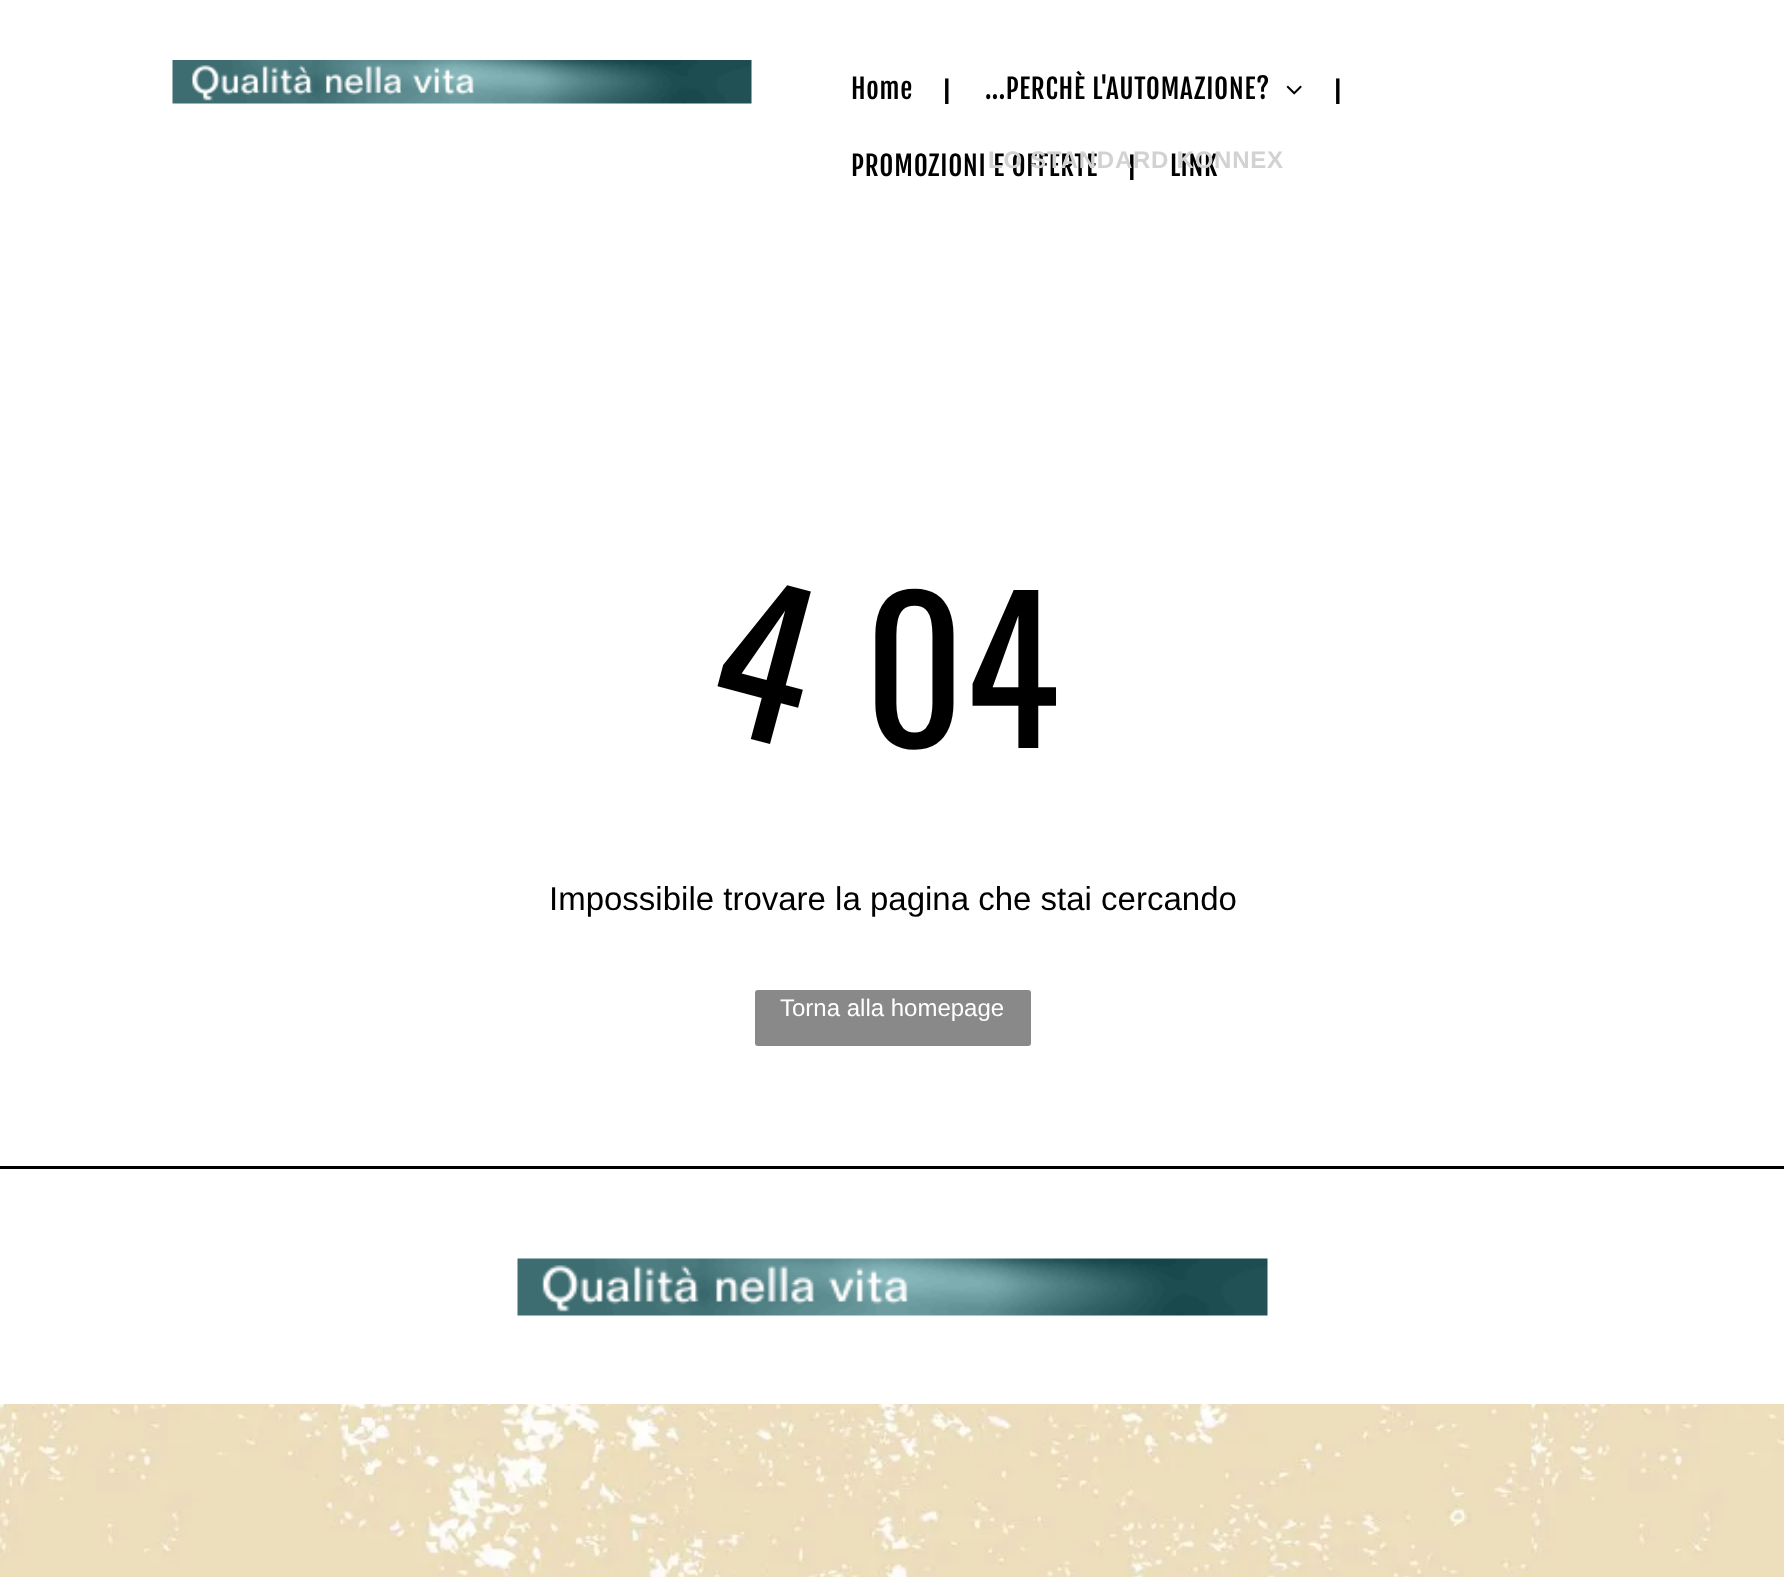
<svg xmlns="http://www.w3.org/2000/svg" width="1784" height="1577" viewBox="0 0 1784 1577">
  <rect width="100%" height="100%" fill="rgb(255,255,255)"/>
  <image x="0" y="1404" width="1784" height="173" href="pic1.png"/>
  <image x="172" y="60" width="580" height="44" href="pic2.png"/>
  <text x="851" y="99" font-family="Fjalla One" font-size="27" letter-spacing="0.8" fill="rgb(0,0,0)">Home</text>
  <text x="943" y="98" font-family="Liberation Sans" font-size="27" font-weight="bold" fill="rgb(0,0,0)">|</text>
  <text x="985" y="99" font-family="Fjalla One" font-size="27" letter-spacing="0.8" fill="rgb(0,0,0)">...PERCHÈ L'AUTOMAZIONE?</text>
  <image x="1286" y="85" width="16" height="10" href="pic3.png"/>
  <text x="1334" y="98" font-family="Liberation Sans" font-size="27" font-weight="bold" fill="rgb(0,0,0)">|</text>
  <text x="851" y="176" font-family="Fjalla One" font-size="27" letter-spacing="0.8" fill="rgb(0,0,0)">PROMOZIONI E OFFERTE</text>
  <text x="1128" y="174" font-family="Liberation Sans" font-size="27" font-weight="bold" fill="rgb(0,0,0)">|</text>
  <text x="1170" y="176" font-family="Fjalla One" font-size="27" letter-spacing="0.8" fill="rgb(0,0,0)">LINK</text>
  <text x="988" y="168" font-family="Liberation Sans" font-size="24" font-weight="bold" letter-spacing="0.75" fill="rgb(210,210,210)">LO STANDARD KONNEX</text>
  <g font-family="Oswald" font-size="195" fill="rgb(0,0,0)">
    <text x="699" y="725" transform="rotate(15 699 725)">4</text>
    <text x="864" y="748">04</text>
  </g>
  <text x="549" y="910" font-family="Liberation Sans" font-size="33" fill="rgb(0,0,0)">Impossibile trovare la pagina che stai cercando</text>
  <rect x="755" y="990" width="276" height="56" rx="3" fill="rgb(137,137,137)"/>
  <text x="780" y="1016" font-family="Liberation Sans" font-size="24" fill="rgb(255,255,255)">Torna alla homepage</text>
  <rect x="0" y="1166" width="1784" height="3" fill="rgb(0,0,0)"/>
  <image x="517" y="1258" width="751" height="58" href="pic4.png"/>
</svg>
